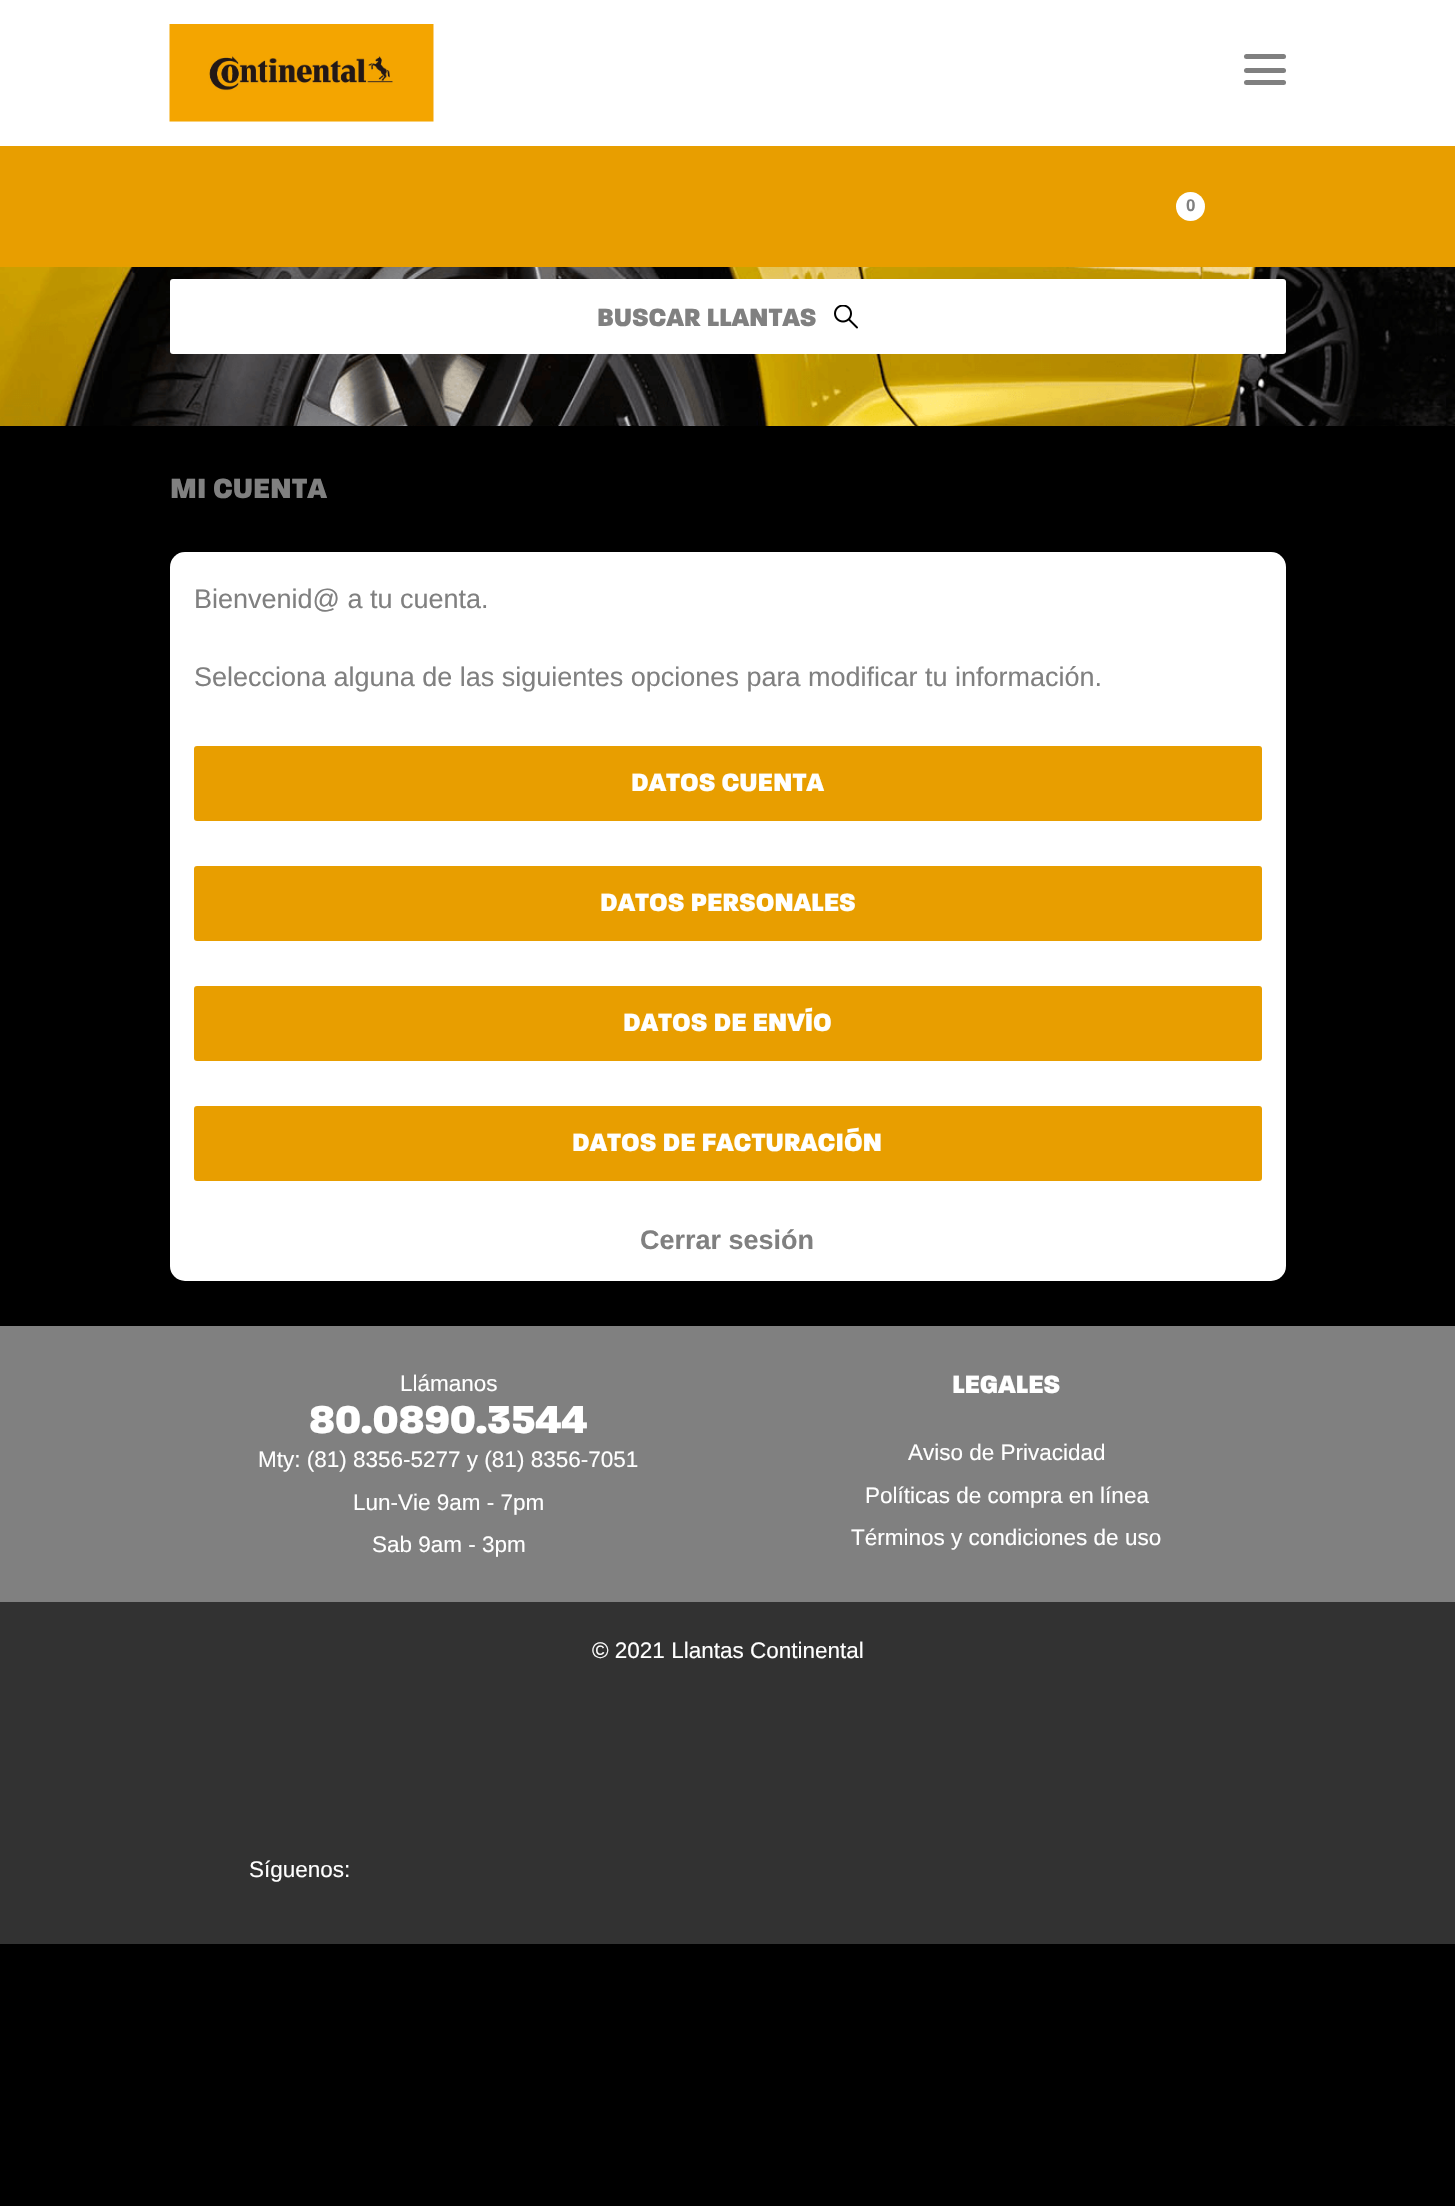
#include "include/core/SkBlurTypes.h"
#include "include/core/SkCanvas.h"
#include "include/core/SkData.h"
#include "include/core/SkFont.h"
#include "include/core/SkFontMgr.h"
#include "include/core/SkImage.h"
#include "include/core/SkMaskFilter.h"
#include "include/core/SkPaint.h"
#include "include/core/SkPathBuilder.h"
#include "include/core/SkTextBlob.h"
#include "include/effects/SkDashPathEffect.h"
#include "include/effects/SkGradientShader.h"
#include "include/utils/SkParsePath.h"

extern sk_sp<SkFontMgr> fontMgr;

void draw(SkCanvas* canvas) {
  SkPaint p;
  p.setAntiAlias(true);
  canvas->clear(SK_ColorBLACK);
  p.setColor(SK_ColorWHITE);
  canvas->drawRect(SkRect::MakeLTRB(0, 0, 1455, 146), p);
  canvas->drawImageRect(SkImages::DeferredFromEncodedData(SkData::MakeFromFileName("images/1.png")), SkRect::MakeLTRB(169, 24, 434, 122), SkSamplingOptions());
  p.setColor(SkColorSetRGB(128, 128, 128));
  canvas->drawRoundRect(SkRect::MakeLTRB(1244, 54, 1286, 59), 2.5f, 2.5f, p);
  canvas->drawRoundRect(SkRect::MakeLTRB(1244, 68, 1286, 73), 2.5f, 2.5f, p);
  canvas->drawRoundRect(SkRect::MakeLTRB(1244, 80, 1286, 85), 2.5f, 2.5f, p);
  p.setColor(SkColorSetRGB(232, 158, 0));
  canvas->drawRect(SkRect::MakeLTRB(0, 146, 1455, 267), p);
  p.setColor(SK_ColorWHITE);
  canvas->drawCircle(1190.5f, 206.5f, 14.5f, p);
  canvas->drawImageRect(SkImages::DeferredFromEncodedData(SkData::MakeFromFileName("images/2.png")), SkRect::MakeLTRB(0, 267, 1455, 426), SkSamplingOptions());
  canvas->drawRoundRect(SkRect::MakeLTRB(170, 279, 1286, 354), 3, 3, p);
  canvas->drawImageRect(SkImages::DeferredFromEncodedData(SkData::MakeFromFileName("images/3.png")), SkRect::MakeLTRB(834, 305, 858, 329), SkSamplingOptions());
  canvas->drawRoundRect(SkRect::MakeLTRB(170, 552, 1286, 1281), 15, 15, p);
  p.setColor(SkColorSetRGB(232, 158, 0));
  canvas->drawRoundRect(SkRect::MakeLTRB(194, 746, 1262, 821), 3, 3, p);
  canvas->drawRoundRect(SkRect::MakeLTRB(194, 866, 1262, 941), 3, 3, p);
  canvas->drawRoundRect(SkRect::MakeLTRB(194, 986, 1262, 1061), 3, 3, p);
  canvas->drawRoundRect(SkRect::MakeLTRB(194, 1106, 1262, 1181), 3, 3, p);
  p.setColor(SkColorSetRGB(128, 128, 128));
  canvas->drawRect(SkRect::MakeLTRB(0, 1326, 1455, 1602), p);
  p.setColor(SkColorSetRGB(50, 50, 50));
  canvas->drawRect(SkRect::MakeLTRB(0, 1602, 1455, 1944), p);
  SkFont font1(fontMgr->matchFamilyStyle("Liberation Sans", SkFontStyle::Bold()), 17);
  font1.setSubpixel(true);
  p.setColor(SkColorSetRGB(128, 128, 128));
  canvas->drawString("0", 1186, 211, font1, p);
  SkFont font2(fontMgr->matchFamilyStyle("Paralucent", SkFontStyle(900, SkFontStyle::kNormal_Width, SkFontStyle::kUpright_Slant)), 27);
  font2.setSubpixel(true);
  canvas->drawString("BUSCAR LLANTAS", 597, 326, font2, p);
  SkFont font3(fontMgr->matchFamilyStyle("Paralucent", SkFontStyle(900, SkFontStyle::kNormal_Width, SkFontStyle::kUpright_Slant)), 30);
  font3.setSubpixel(true);
  canvas->drawString("MI CUENTA", 170, 498, font3, p);
  SkFont font4(fontMgr->matchFamilyStyle("Liberation Sans", SkFontStyle::Normal()), 27);
  font4.setSubpixel(true);
  canvas->drawString("Bienvenid@ a tu cuenta.", 194, 608, font4, p);
  canvas->drawString("Selecciona alguna de las siguientes opciones para modificar tu información.", 194, 686, font4, p);
  p.setColor(SK_ColorWHITE);
  canvas->drawString("DATOS CUENTA", 631, 791, font2, p);
  canvas->drawString("DATOS PERSONALES", 600, 911, font2, p);
  canvas->drawString("DATOS DE ENVÍO", 623, 1031, font2, p);
  canvas->drawString("DATOS DE FACTURACIÓN", 572, 1151, font2, p);
  SkFont font5(fontMgr->matchFamilyStyle("Liberation Sans", SkFontStyle::Bold()), 27);
  font5.setSubpixel(true);
  p.setColor(SkColorSetRGB(128, 128, 128));
  canvas->drawString("Cerrar sesión", 640, 1249, font5, p);
  SkFont font6(fontMgr->matchFamilyStyle("Liberation Sans", SkFontStyle::Normal()), 22.5f);
  font6.setSubpixel(true);
  p.setColor(SK_ColorWHITE);
  canvas->drawString("Llámanos", 400, 1391, font6, p);
  SkFont font7(fontMgr->matchFamilyStyle("Paralucent", SkFontStyle(900, SkFontStyle::kNormal_Width, SkFontStyle::kUpright_Slant)), 42);
  font7.setSubpixel(true);
  canvas->drawString("80.0890.3544", 309, 1433, font7, p);
  canvas->drawString("Mty: (81) 8356-5277 y (81) 8356-7051", 258, 1467, font6, p);
  canvas->drawString("Lun-Vie 9am - 7pm", 353, 1510, font6, p);
  canvas->drawString("Sab 9am - 3pm", 372, 1552, font6, p);
  canvas->drawString("LEGALES", 952, 1393, font2, p);
  canvas->drawString("Aviso de Privacidad", 908, 1460, font6, p);
  canvas->drawString("Políticas de compra en línea", 865, 1503, font6, p);
  canvas->drawString("Términos y condiciones de uso", 851, 1545, font6, p);
  canvas->drawString("© 2021 Llantas Continental", 592, 1658, font6, p);
  canvas->drawString("Síguenos:", 249, 1877, font6, p);
}
